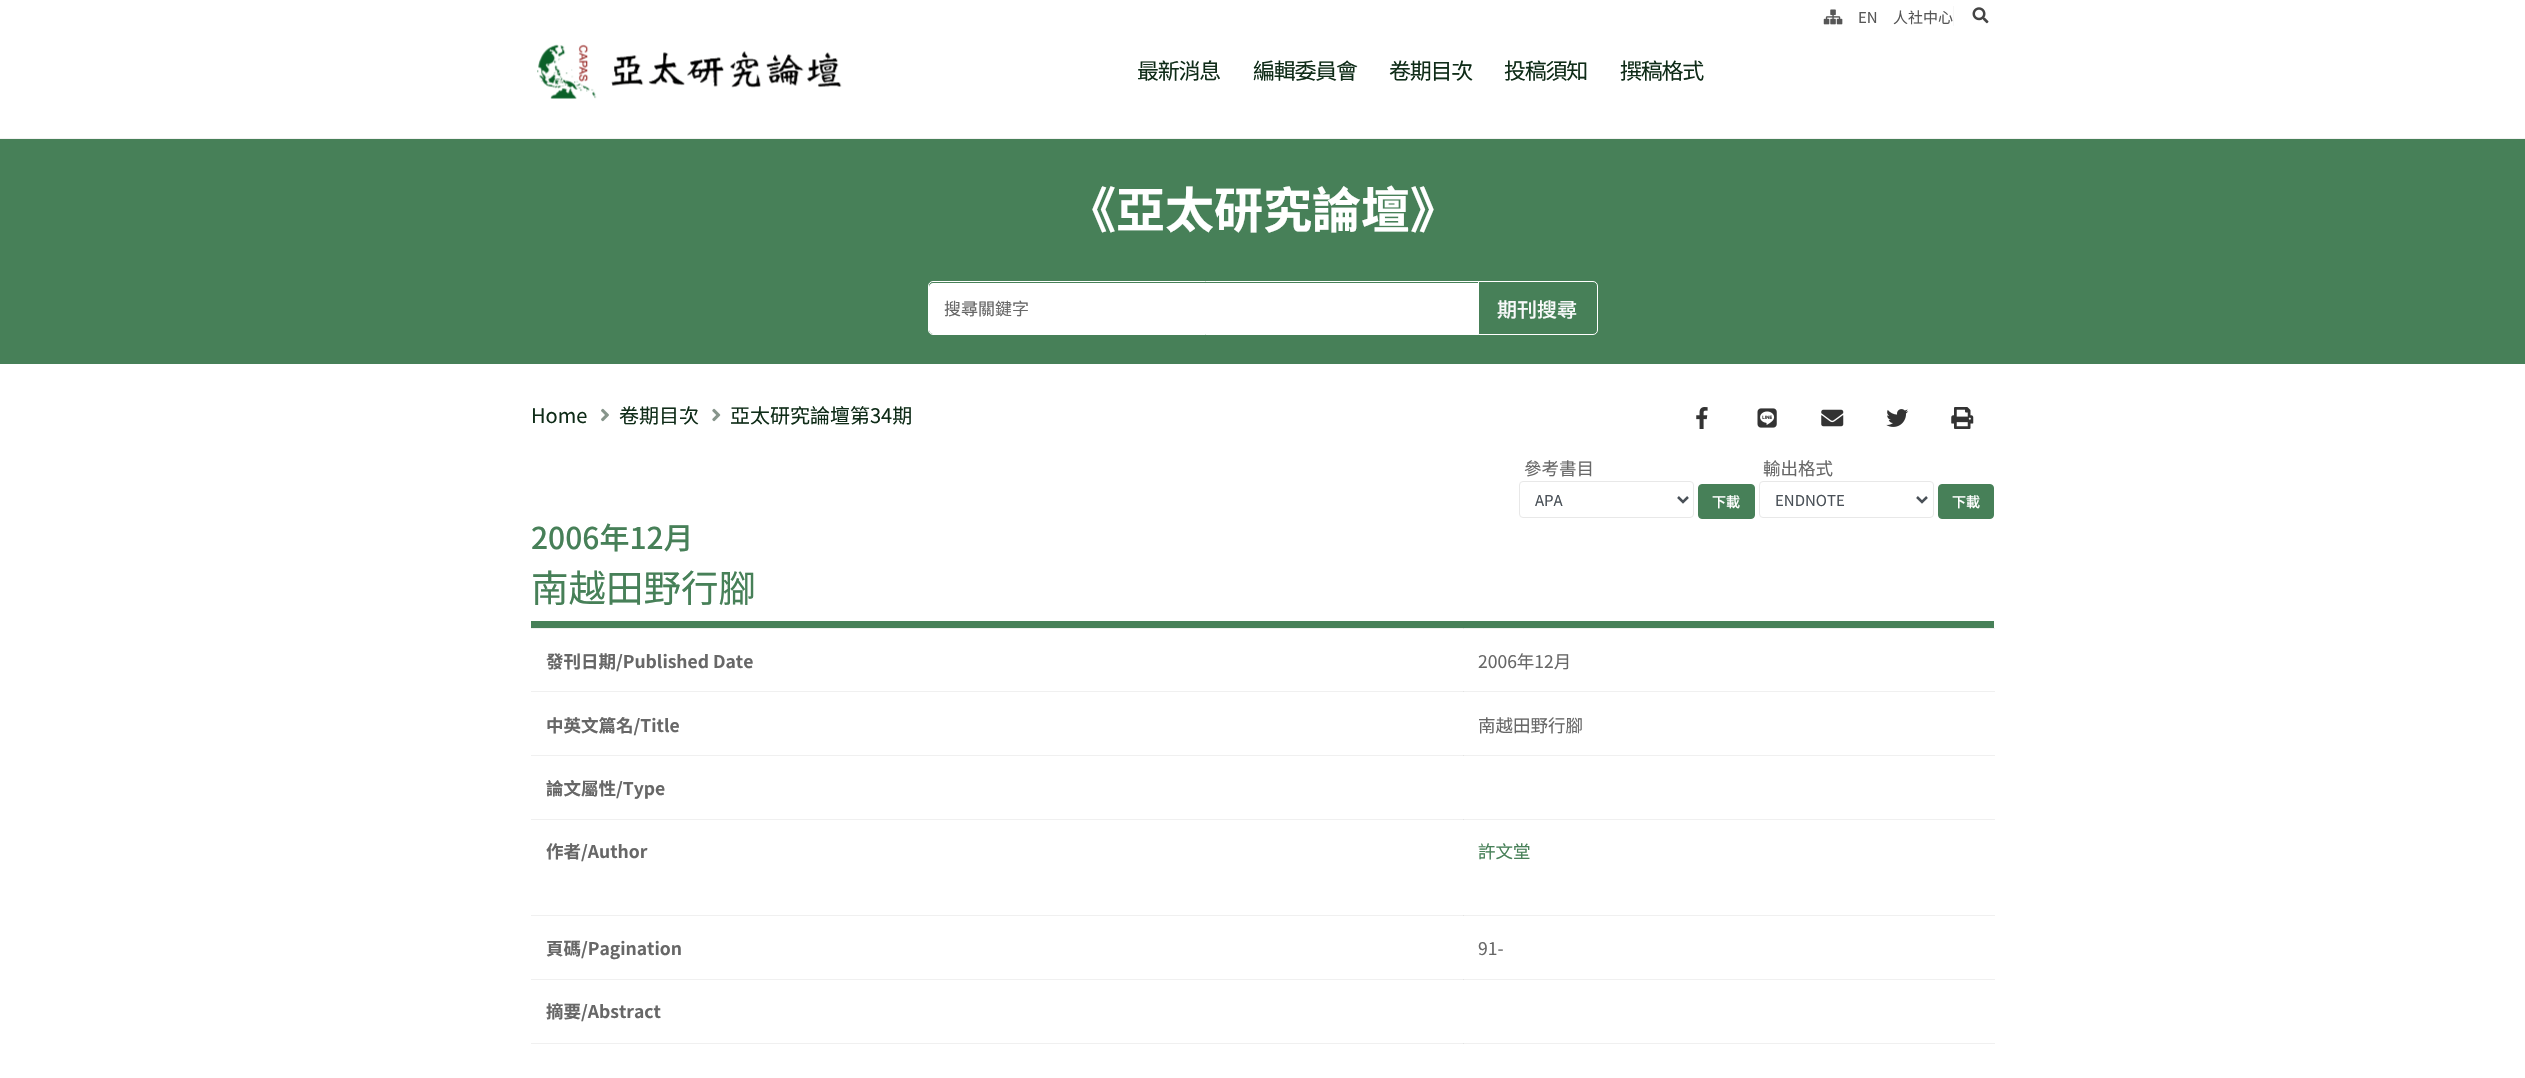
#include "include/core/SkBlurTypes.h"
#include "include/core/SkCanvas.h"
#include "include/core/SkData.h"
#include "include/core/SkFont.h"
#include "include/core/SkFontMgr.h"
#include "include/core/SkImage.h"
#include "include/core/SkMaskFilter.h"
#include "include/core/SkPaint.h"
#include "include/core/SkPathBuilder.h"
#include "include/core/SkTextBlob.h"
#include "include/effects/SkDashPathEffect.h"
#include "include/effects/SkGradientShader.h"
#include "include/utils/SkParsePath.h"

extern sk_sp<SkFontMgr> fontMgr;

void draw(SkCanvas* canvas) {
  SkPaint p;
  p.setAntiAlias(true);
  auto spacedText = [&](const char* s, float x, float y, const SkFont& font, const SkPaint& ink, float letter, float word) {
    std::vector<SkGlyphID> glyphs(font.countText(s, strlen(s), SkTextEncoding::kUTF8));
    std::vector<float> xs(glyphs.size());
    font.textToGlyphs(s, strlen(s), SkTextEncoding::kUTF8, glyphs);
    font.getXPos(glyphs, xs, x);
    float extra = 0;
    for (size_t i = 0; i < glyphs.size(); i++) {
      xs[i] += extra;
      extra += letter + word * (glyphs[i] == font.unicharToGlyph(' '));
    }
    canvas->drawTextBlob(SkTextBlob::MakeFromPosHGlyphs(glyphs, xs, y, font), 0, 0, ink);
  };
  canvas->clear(SK_ColorWHITE);
  p.setColor(SkColorSetRGB(240, 240, 240));
  canvas->drawRect(SkRect::MakeLTRB(531, 628, 1995, 629), p);
  canvas->drawRect(SkRect::MakeLTRB(531, 691, 1995, 692), p);
  canvas->drawRect(SkRect::MakeLTRB(531, 755, 1995, 756), p);
  canvas->drawRect(SkRect::MakeLTRB(531, 819, 1995, 820), p);
  canvas->drawRect(SkRect::MakeLTRB(531, 915, 1995, 916), p);
  canvas->drawRect(SkRect::MakeLTRB(531, 979, 1995, 980), p);
  canvas->drawRect(SkRect::MakeLTRB(531, 1043, 1995, 1044), p);
  p.setColor(SkColorSetRGB(242, 242, 242));
  canvas->drawRect(SkRect::MakeLTRB(0, 138, 2525, 139), p);
  canvas->drawImageRect(SkImages::DeferredFromEncodedData(SkData::MakeFromFileName("images/1.png")), SkRect::MakeLTRB(537, 44, 842, 99), SkSamplingOptions());
  canvas->drawImageRect(SkImages::DeferredFromEncodedData(SkData::MakeFromFileName("images/2.png")), SkRect::MakeLTRB(1823, 9, 1843, 25), SkSamplingOptions());
  p.setColor(SkColorSetRGB(247, 247, 247));
  canvas->drawRect(SkRect::MakeLTRB(1953, 6, 1954, 26), p);
  canvas->drawImageRect(SkImages::DeferredFromEncodedData(SkData::MakeFromFileName("images/3.png")), SkRect::MakeLTRB(1972, 7, 1989, 24), SkSamplingOptions());
  p.setColor(SkColorSetRGB(71, 128, 88));
  canvas->drawRect(SkRect::MakeLTRB(0, 139, 2525, 364), p);
  p.setColor(SK_ColorWHITE);
  canvas->drawPath(SkPathBuilder().moveTo(933, 283).lineTo(1478, 283).lineTo(1478, 334).lineTo(933, 334).cubicTo(931, 334, 929, 332, 929, 330).lineTo(929, 287).cubicTo(929, 285, 931, 283, 933, 283).close().detach(), p);
  p.setStyle(SkPaint::kStroke_Style);
  p.setStrokeWidth(1);
  canvas->drawPath(SkPathBuilder().moveTo(933, 281.5f).lineTo(1478.5f, 281.5f).lineTo(1478.5f, 334.5f).lineTo(933, 334.5f).cubicTo(930.5f, 334.5f, 928.5f, 332.5f, 928.5f, 330).lineTo(928.5f, 286).cubicTo(928.5f, 283.5f, 930.5f, 281.5f, 933, 281.5f).close().detach(), p);
  canvas->drawPath(SkPathBuilder().moveTo(1478.5f, 281.5f).lineTo(1593, 281.5f).cubicTo(1595.5f, 281.5f, 1597.5f, 283.5f, 1597.5f, 286).lineTo(1597.5f, 330).cubicTo(1597.5f, 332.5f, 1595.5f, 334.5f, 1593, 334.5f).lineTo(1478.5f, 334.5f).close().detach(), p);
  canvas->drawImageRect(SkImages::DeferredFromEncodedData(SkData::MakeFromFileName("images/4.png")), SkRect::MakeLTRB(601, 408, 609, 422), SkSamplingOptions());
  canvas->drawImageRect(SkImages::DeferredFromEncodedData(SkData::MakeFromFileName("images/5.png")), SkRect::MakeLTRB(712, 408, 721, 422), SkSamplingOptions());
  canvas->drawImageRect(SkImages::DeferredFromEncodedData(SkData::MakeFromFileName("images/6.png")), SkRect::MakeLTRB(1696, 407, 1708, 429), SkSamplingOptions());
  canvas->drawImageRect(SkImages::DeferredFromEncodedData(SkData::MakeFromFileName("images/7.png")), SkRect::MakeLTRB(1757, 408, 1777, 428), SkSamplingOptions());
  canvas->drawImageRect(SkImages::DeferredFromEncodedData(SkData::MakeFromFileName("images/8.png")), SkRect::MakeLTRB(1821, 409, 1844, 427), SkSamplingOptions());
  canvas->drawImageRect(SkImages::DeferredFromEncodedData(SkData::MakeFromFileName("images/9.png")), SkRect::MakeLTRB(1886, 409, 1909, 427), SkSamplingOptions());
  canvas->drawImageRect(SkImages::DeferredFromEncodedData(SkData::MakeFromFileName("images/10.png")), SkRect::MakeLTRB(1951, 407, 1974, 429), SkSamplingOptions());
  p.setColor(SkColorSetRGB(232, 232, 232));
  canvas->drawRoundRect(SkRect::MakeLTRB(1519.5f, 481.5f, 1693.5f, 517.5f), 3.5f, 3.5f, p);
  p.setStrokeWidth(2.5f);
  p.setColor(SkColorSetRGB(73, 80, 87));
  canvas->drawPath(SkPathBuilder().moveTo(1678, 497).lineTo(1683, 502).lineTo(1688, 497).detach(), p);
  p.setStyle(SkPaint::kFill_Style);
  p.setColor(SkColorSetRGB(71, 128, 88));
  canvas->drawRoundRect(SkRect::MakeLTRB(1698.5f, 484.5f, 1754.5f, 518.5f), 3.5f, 3.5f, p);
  p.setStyle(SkPaint::kStroke_Style);
  p.setStrokeWidth(1);
  canvas->drawRoundRect(SkRect::MakeLTRB(1698.5f, 484.5f, 1754.5f, 518.5f), 3.5f, 3.5f, p);
  p.setColor(SkColorSetRGB(232, 232, 232));
  canvas->drawRoundRect(SkRect::MakeLTRB(1759.5f, 481.5f, 1933.5f, 517.5f), 3.5f, 3.5f, p);
  p.setStrokeWidth(2.5f);
  p.setColor(SkColorSetRGB(73, 80, 87));
  canvas->drawPath(SkPathBuilder().moveTo(1917, 497).lineTo(1922, 502).lineTo(1927, 497).detach(), p);
  p.setStyle(SkPaint::kFill_Style);
  p.setColor(SkColorSetRGB(71, 128, 88));
  canvas->drawRoundRect(SkRect::MakeLTRB(1938.5f, 484.5f, 1993.5f, 518.5f), 3.5f, 3.5f, p);
  p.setStyle(SkPaint::kStroke_Style);
  p.setStrokeWidth(1);
  canvas->drawRoundRect(SkRect::MakeLTRB(1938.5f, 484.5f, 1993.5f, 518.5f), 3.5f, 3.5f, p);
  p.setStyle(SkPaint::kFill_Style);
  canvas->drawRect(SkRect::MakeLTRB(531, 621, 1994, 628), p);
  p.setColor(SkColorSetRGB(226, 226, 226));
  canvas->drawRect(SkRect::MakeLTRB(1463, 628, 1464, 629), p);
  canvas->drawRect(SkRect::MakeLTRB(1463, 691, 1464, 692), p);
  canvas->drawRect(SkRect::MakeLTRB(1463, 755, 1464, 756), p);
  canvas->drawRect(SkRect::MakeLTRB(1463, 819, 1464, 820), p);
  canvas->drawRect(SkRect::MakeLTRB(1463, 915, 1464, 916), p);
  canvas->drawRect(SkRect::MakeLTRB(1463, 979, 1464, 980), p);
  canvas->drawRect(SkRect::MakeLTRB(1463, 1043, 1464, 1044), p);
  SkFont font1(fontMgr->matchFamilyStyle("Noto Sans TC", SkFontStyle::Normal()), 15);
  font1.setSubpixel(true);
  p.setColor(SkColorSetRGB(86, 86, 86));
  canvas->drawString("EN", 1858, 23, font1, p);
  canvas->drawString("人社中心", 1893, 23, font1, p);
  SkFont font2(fontMgr->matchFamilyStyle("Noto Sans TC", SkFontStyle::Normal()), 22);
  font2.setSubpixel(true);
  p.setColor(SkColorSetRGB(15, 44, 24));
  spacedText("最新消息", 1137, 79, font2, p, -1.25f, 0);
  spacedText("編輯委員會", 1253, 79, font2, p, -1.25f, 0);
  spacedText("卷期目次", 1389, 79, font2, p, -1.25f, 0);
  spacedText("投稿須知", 1504, 79, font2, p, -1.25f, 0);
  spacedText("撰稿格式", 1620, 79, font2, p, -1.25f, 0);
  SkFont font3(fontMgr->matchFamilyStyle("Noto Sans TC", SkFontStyle::Bold()), 49);
  font3.setSubpixel(true);
  p.setColor(SK_ColorWHITE);
  canvas->drawString("《亞太研究論壇》", 1067, 228, font3, p);
  SkFont font4(fontMgr->matchFamilyStyle("Noto Sans TC", SkFontStyle::Normal()), 17);
  font4.setSubpixel(true);
  p.setColor(SkColorSetRGB(103, 103, 103));
  canvas->drawString("搜尋關鍵字", 944, 315, font4, p);
  SkFont font5(fontMgr->matchFamilyStyle("Noto Sans TC", SkFontStyle(500, SkFontStyle::kNormal_Width, SkFontStyle::kUpright_Slant)), 20);
  font5.setSubpixel(true);
  p.setColor(SkColorSetRGB(248, 249, 250));
  canvas->drawString("期刊搜尋", 1497, 317, font5, p);
  SkFont font6(fontMgr->matchFamilyStyle("Noto Sans TC", SkFontStyle::Normal()), 20);
  font6.setSubpixel(true);
  p.setColor(SkColorSetRGB(15, 44, 24));
  canvas->drawString("Home", 531, 423, font6, p);
  canvas->drawString("卷期目次", 619, 423, font6, p);
  canvas->drawString("亞太研究論壇第34期", 730, 423, font6, p);
  SkFont font7(fontMgr->matchFamilyStyle("Noto Sans TC", SkFontStyle::Normal()), 17.5f);
  font7.setSubpixel(true);
  p.setColor(SkColorSetRGB(103, 103, 103));
  canvas->drawString("參考書目", 1524, 475, font7, p);
  p.setColor(SkColorSetRGB(73, 80, 87));
  canvas->drawString("APA", 1535, 506, font1, p);
  SkFont font8(fontMgr->matchFamilyStyle("Noto Sans TC", SkFontStyle(500, SkFontStyle::kNormal_Width, SkFontStyle::kUpright_Slant)), 14);
  font8.setSubpixel(true);
  p.setColor(SK_ColorWHITE);
  canvas->drawString("下載", 1712, 507, font8, p);
  p.setColor(SkColorSetRGB(103, 103, 103));
  canvas->drawString("輸出格式", 1763, 475, font7, p);
  p.setColor(SkColorSetRGB(73, 80, 87));
  canvas->drawString("ENDNOTE", 1775, 506, font1, p);
  p.setColor(SK_ColorWHITE);
  canvas->drawString("下載", 1952, 507, font8, p);
  SkFont font9(fontMgr->matchFamilyStyle("Noto Sans TC", SkFontStyle(500, SkFontStyle::kNormal_Width, SkFontStyle::kUpright_Slant)), 30);
  font9.setSubpixel(true);
  p.setColor(SkColorSetRGB(71, 128, 88));
  canvas->drawString("2006年12月", 531, 549, font9, p);
  SkFont font10(fontMgr->matchFamilyStyle("Noto Sans TC", SkFontStyle::Normal()), 37.5f);
  font10.setSubpixel(true);
  canvas->drawString("南越田野行腳", 531, 602, font10, p);
  SkFont font11(fontMgr->matchFamilyStyle("Noto Sans TC", SkFontStyle::Bold()), 17.5f);
  font11.setSubpixel(true);
  p.setColor(SkColorSetRGB(103, 103, 103));
  canvas->drawString("發刊日期/Published Date", 546, 668, font11, p);
  canvas->drawString("2006年12月", 1478, 668, font7, p);
  canvas->drawString("中英文篇名/Title", 546, 732, font11, p);
  canvas->drawString("南越田野行腳", 1478, 732, font7, p);
  canvas->drawString("論文屬性/Type", 546, 795, font11, p);
  canvas->drawString("作者/Author", 546, 858, font11, p);
  p.setColor(SkColorSetRGB(71, 128, 88));
  canvas->drawString("許文堂", 1478, 858, font7, p);
  p.setColor(SkColorSetRGB(103, 103, 103));
  canvas->drawString("頁碼/Pagination", 546, 955, font11, p);
  canvas->drawString("91-", 1478, 955, font7, p);
  canvas->drawString("摘要/Abstract", 546, 1018, font11, p);
}
